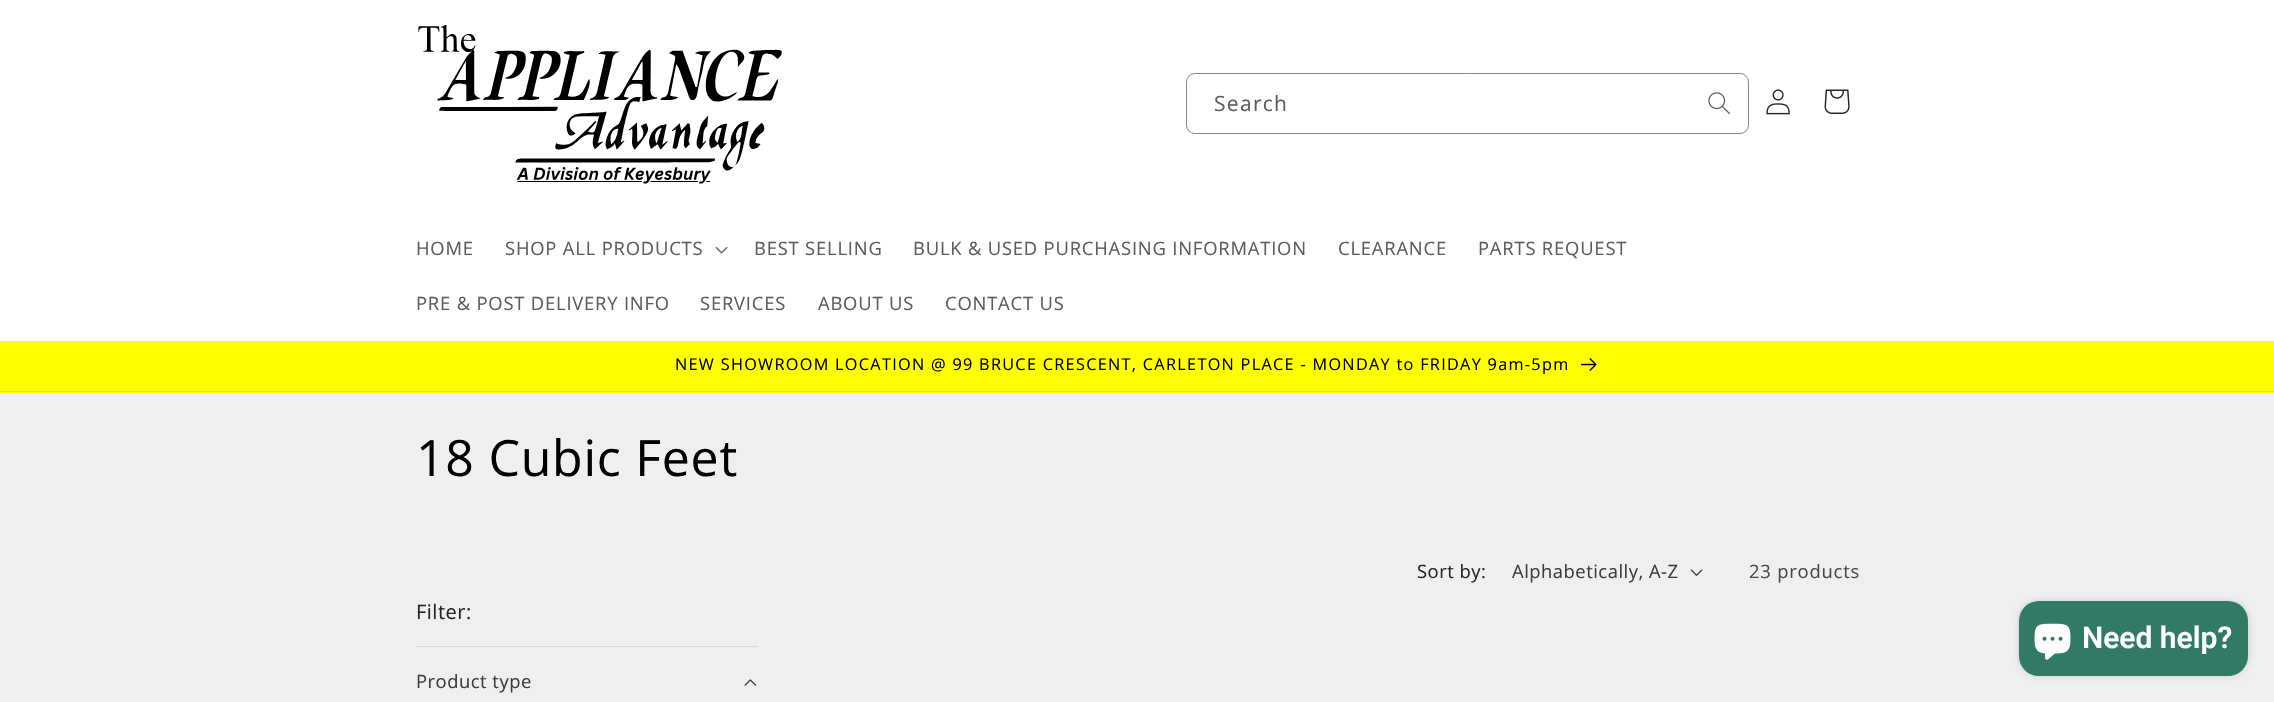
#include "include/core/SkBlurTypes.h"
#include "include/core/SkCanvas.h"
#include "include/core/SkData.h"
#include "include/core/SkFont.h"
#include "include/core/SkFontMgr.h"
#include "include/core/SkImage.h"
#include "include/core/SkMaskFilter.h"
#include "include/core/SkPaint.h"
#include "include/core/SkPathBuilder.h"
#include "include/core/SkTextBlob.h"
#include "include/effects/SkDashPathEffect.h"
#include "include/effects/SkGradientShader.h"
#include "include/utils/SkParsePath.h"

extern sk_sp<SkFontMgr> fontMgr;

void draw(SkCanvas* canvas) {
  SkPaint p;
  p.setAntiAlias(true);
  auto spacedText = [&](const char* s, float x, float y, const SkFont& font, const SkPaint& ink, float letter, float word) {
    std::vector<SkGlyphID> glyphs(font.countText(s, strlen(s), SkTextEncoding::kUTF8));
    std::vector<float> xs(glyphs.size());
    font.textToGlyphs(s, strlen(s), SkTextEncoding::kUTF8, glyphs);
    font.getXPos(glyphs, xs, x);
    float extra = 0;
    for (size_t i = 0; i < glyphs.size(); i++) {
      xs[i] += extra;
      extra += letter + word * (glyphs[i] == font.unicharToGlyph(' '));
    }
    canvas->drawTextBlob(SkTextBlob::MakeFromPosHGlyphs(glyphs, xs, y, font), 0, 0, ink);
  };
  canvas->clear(SkColorSetRGB(239, 239, 239));
  p.setColor(SK_ColorWHITE);
  canvas->drawRect(SkRect::MakeLTRB(0, 0, 2274, 341), p);
  canvas->drawImageRect(SkImages::DeferredFromEncodedData(SkData::MakeFromFileName("images/1.png")), SkRect::MakeLTRB(418, 25, 782, 184), SkSamplingOptions());
  canvas->drawImageRect(SkImages::DeferredFromEncodedData(SkData::MakeFromFileName("images/2.png")), SkRect::MakeLTRB(1708, 92, 1730, 115), SkSamplingOptions());
  p.setStyle(SkPaint::kStroke_Style);
  p.setStrokeWidth(1);
  p.setColor(SkColorSetRGB(135, 135, 135));
  canvas->drawRoundRect(SkRect::MakeLTRB(1186.5f, 73.5f, 1748.5f, 133.5f), 8.5f, 8.5f, p);
  canvas->drawImageRect(SkImages::DeferredFromEncodedData(SkData::MakeFromFileName("images/3.png")), SkRect::MakeLTRB(1766, 89, 1790, 115), SkSamplingOptions());
  canvas->drawImageRect(SkImages::DeferredFromEncodedData(SkData::MakeFromFileName("images/4.png")), SkRect::MakeLTRB(1824, 89, 1850, 114), SkSamplingOptions());
  canvas->drawImageRect(SkImages::DeferredFromEncodedData(SkData::MakeFromFileName("images/5.png")), SkRect::MakeLTRB(715, 247, 728, 254), SkSamplingOptions());
  p.setStyle(SkPaint::kFill_Style);
  p.setColor(SkColorSetRGB(255, 254, 0));
  canvas->drawRect(SkRect::MakeLTRB(0, 341, 2274, 393), p);
  p.setColor(SkColorSetRGB(235, 234, 0));
  canvas->drawRect(SkRect::MakeLTRB(0, 391, 2274, 392), p);
  canvas->drawImageRect(SkImages::DeferredFromEncodedData(SkData::MakeFromFileName("images/6.png")), SkRect::MakeLTRB(1581, 358, 1597, 371), SkSamplingOptions());
  canvas->drawImageRect(SkImages::DeferredFromEncodedData(SkData::MakeFromFileName("images/7.png")), SkRect::MakeLTRB(1690, 569, 1703, 576), SkSamplingOptions());
  p.setColor(SkColorSetRGB(215, 215, 215));
  canvas->drawRect(SkRect::MakeLTRB(416, 646, 758, 647), p);
  canvas->drawImageRect(SkImages::DeferredFromEncodedData(SkData::MakeFromFileName("images/8.png")), SkRect::MakeLTRB(744, 679, 757, 686), SkSamplingOptions());
  p.setColor(SkColorSetARGB(38, 0, 0, 0));
  p.setMaskFilter(SkMaskFilter::MakeBlur(kNormal_SkBlurStyle, 3));
  canvas->drawRoundRect(SkRect::MakeLTRB(2019, 601, 2248, 676), 20, 20, p);
  p.setMaskFilter(nullptr);
  p.setColor(SkColorSetRGB(49, 123, 102));
  canvas->drawRoundRect(SkRect::MakeLTRB(2019, 601, 2248, 676), 20, 20, p);
  canvas->drawImageRect(SkImages::DeferredFromEncodedData(SkData::MakeFromFileName("images/9.png")), SkRect::MakeLTRB(2034, 623, 2071, 660), SkSamplingOptions());
  SkFont font1(fontMgr->matchFamilyStyle("Open Sans", SkFontStyle::Normal()), 21);
  font1.setSubpixel(true);
  p.setColor(SkColorSetRGB(92, 92, 92));
  spacedText("Search", 1214, 111, font1, p, 1.3f, 0);
  SkFont font2(fontMgr->matchFamilyStyle("Open Sans", SkFontStyle::Normal()), 18.4f);
  font2.setSubpixel(true);
  spacedText("HOME", 416, 255, font2, p, 0.8f, 0);
  spacedText("SHOP ALL PRODUCTS", 505, 255, font2, p, 0.8f, 0);
  spacedText("BEST SELLING", 754, 255, font2, p, 0.8f, 0);
  spacedText("BULK & USED PURCHASING INFORMATION", 913, 255, font2, p, 0.8f, 0);
  spacedText("CLEARANCE", 1338, 255, font2, p, 0.8f, 0);
  spacedText("PARTS REQUEST", 1478, 255, font2, p, 0.8f, 0);
  spacedText("PRE & POST DELIVERY INFO", 416, 310, font2, p, 0.8f, 0);
  spacedText("SERVICES", 700, 310, font2, p, 0.8f, 0);
  spacedText("ABOUT US", 818, 310, font2, p, 0.8f, 0);
  spacedText("CONTACT US", 945, 310, font2, p, 0.8f, 0);
  SkFont font3(fontMgr->matchFamilyStyle("Open Sans", SkFontStyle::Normal()), 16.25f);
  font3.setSubpixel(true);
  p.setColor(SK_ColorBLACK);
  spacedText("NEW SHOWROOM LOCATION @ 99 BRUCE CRESCENT, CARLETON PLACE - MONDAY to FRIDAY 9am-5pm", 675, 370, font3, p, 1.3f, 0);
  SkFont font4(fontMgr->matchFamilyStyle("Open Sans", SkFontStyle::Normal()), 50);
  font4.setSubpixel(true);
  spacedText("18 Cubic Feet", 416, 476, font4, p, 0.75f, 0);
  p.setColor(SkColorSetRGB(36, 36, 36));
  spacedText("Sort by:", 1417, 578, font2, p, 0.5f, 0);
  p.setColor(SkColorSetRGB(60, 60, 60));
  spacedText("Alphabetically, A-Z", 1512, 578, font2, p, 0.5f, 0);
  p.setColor(SkColorSetRGB(72, 72, 72));
  spacedText("23 products", 1749, 578, font2, p, 0.8f, 0);
  SkFont font5(fontMgr->matchFamilyStyle("Open Sans", SkFontStyle::Normal()), 20);
  font5.setSubpixel(true);
  p.setColor(SkColorSetRGB(36, 36, 36));
  spacedText("Filter:", 416, 619, font5, p, 0.5f, 0);
  p.setColor(SkColorSetRGB(60, 60, 60));
  spacedText("Product type", 416, 688, font2, p, 0.5f, 0);
  SkFont font6(fontMgr->matchFamilyStyle("Roboto", SkFontStyle(600, SkFontStyle::kNormal_Width, SkFontStyle::kUpright_Slant)), 30);
  font6.setSubpixel(true);
  p.setColor(SK_ColorWHITE);
  canvas->drawString("Need help?", 2082, 648, font6, p);
}
